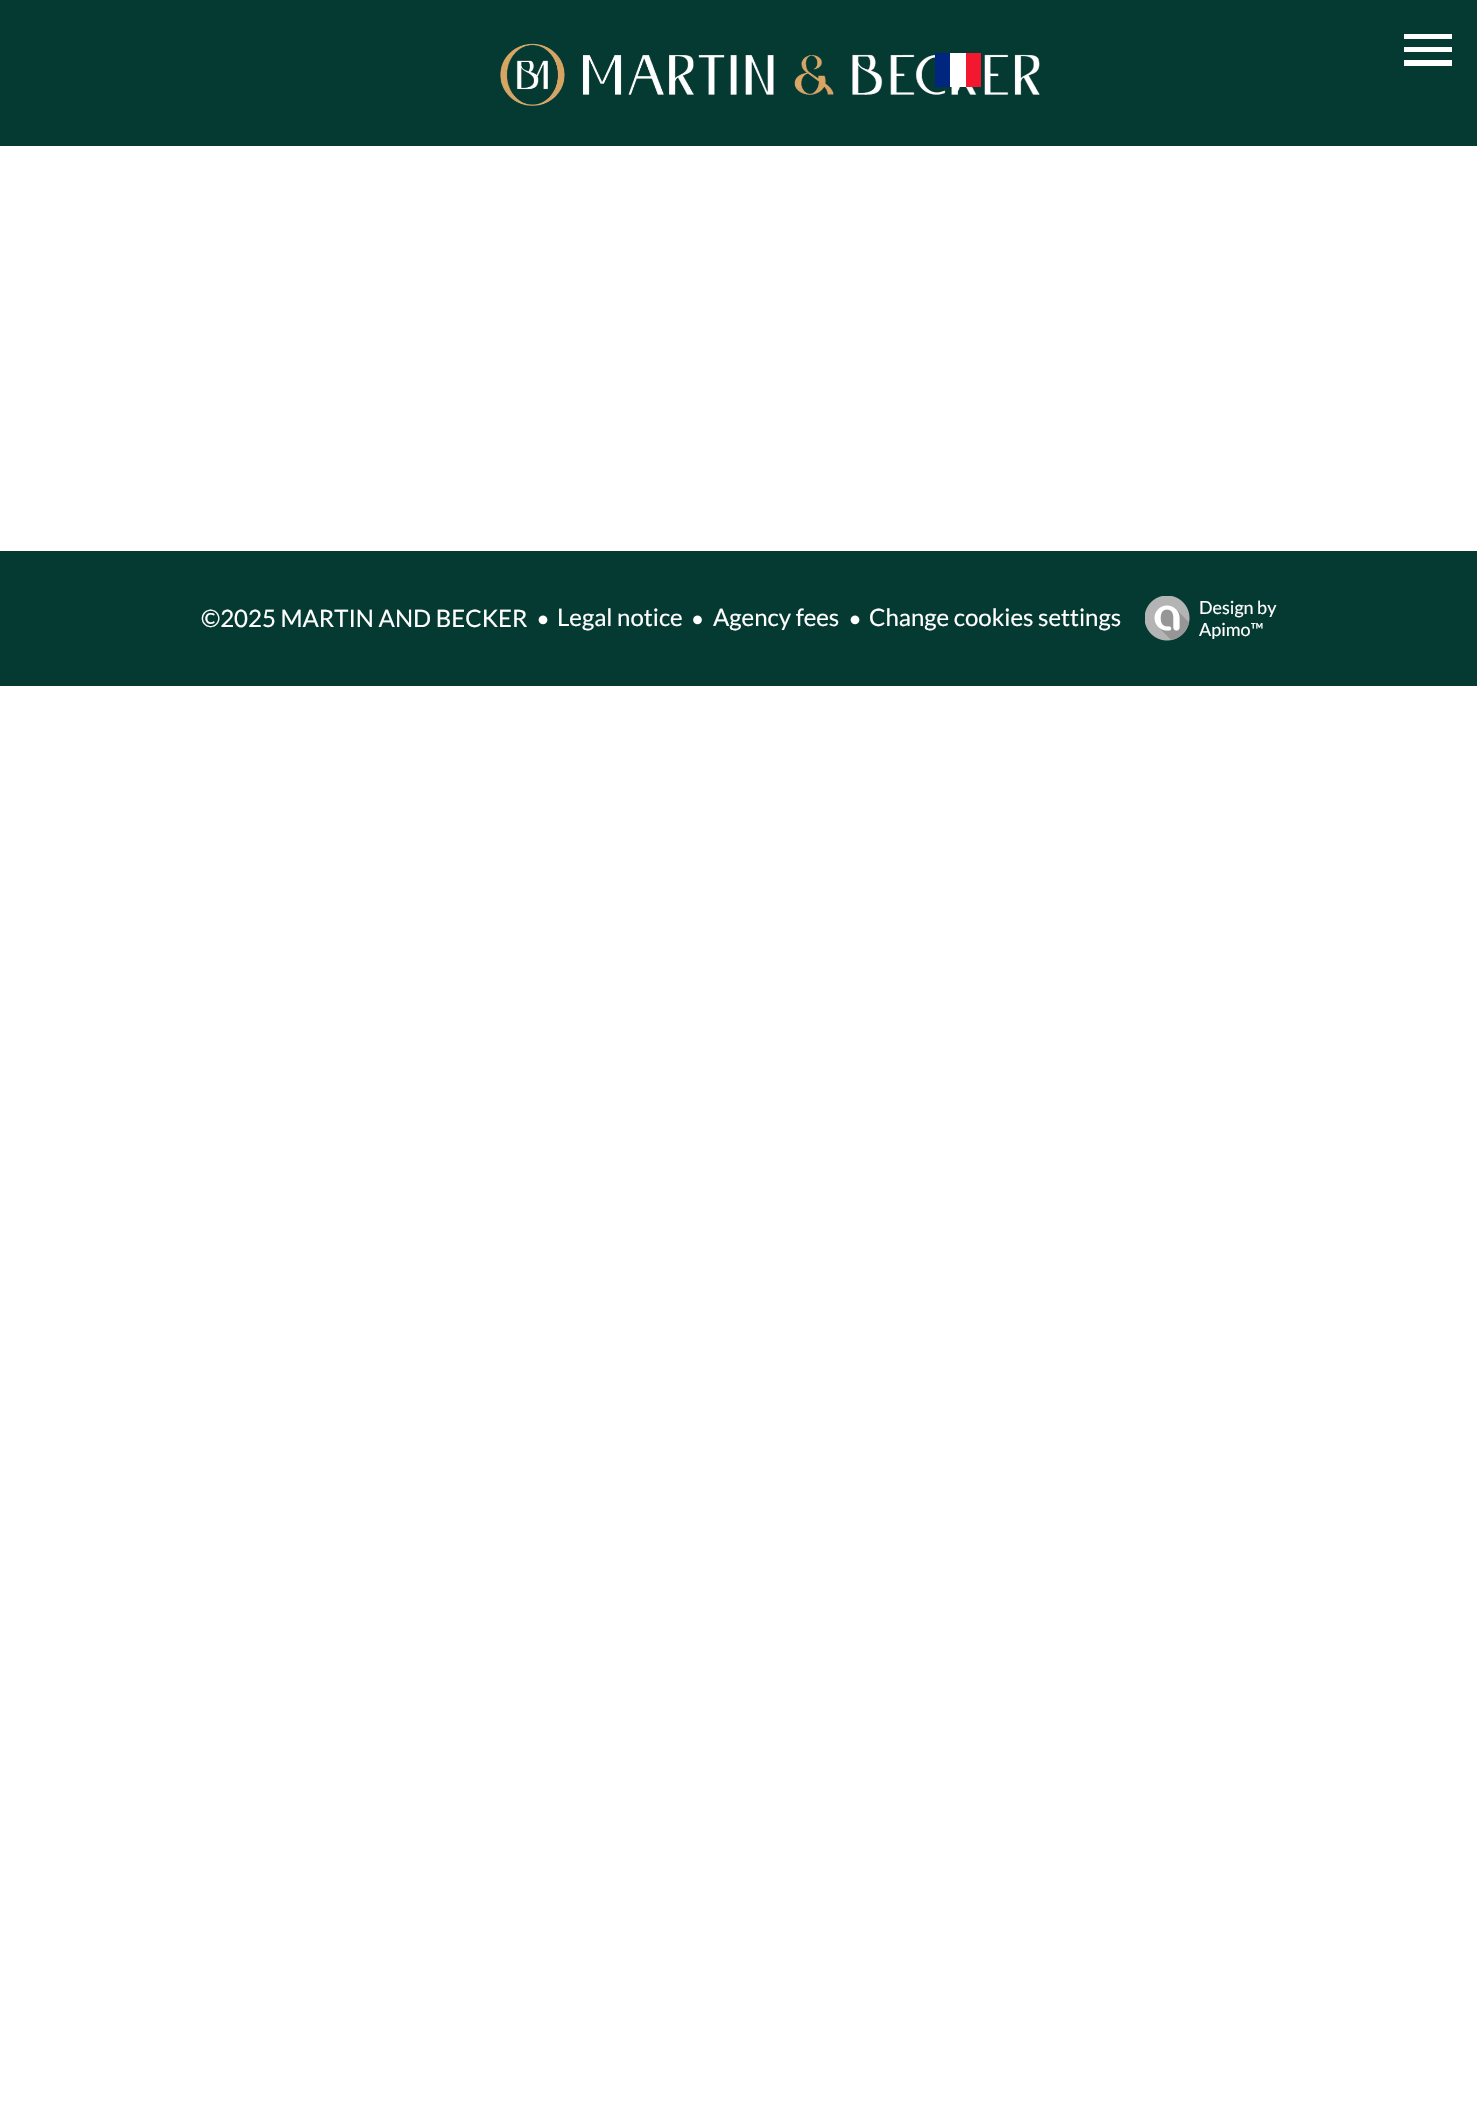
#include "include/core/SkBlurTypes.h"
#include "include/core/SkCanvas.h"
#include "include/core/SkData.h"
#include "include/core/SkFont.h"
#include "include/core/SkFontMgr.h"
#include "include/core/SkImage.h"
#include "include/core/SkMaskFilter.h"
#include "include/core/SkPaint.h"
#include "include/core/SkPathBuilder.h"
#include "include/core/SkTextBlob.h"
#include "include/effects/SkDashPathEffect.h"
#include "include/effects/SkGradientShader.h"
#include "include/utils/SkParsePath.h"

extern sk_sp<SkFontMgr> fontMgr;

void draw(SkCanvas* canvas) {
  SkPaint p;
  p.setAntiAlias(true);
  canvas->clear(SK_ColorWHITE);
  p.setColor(SkColorSetRGB(4, 58, 50));
  canvas->drawRect(SkRect::MakeLTRB(0, 0, 1477, 146), p);
  canvas->drawImageRect(SkImages::DeferredFromEncodedData(SkData::MakeFromFileName("images/1.png")), SkRect::MakeLTRB(500, 43, 1040, 106), SkSamplingOptions());
  p.setColor(SK_ColorWHITE);
  canvas->drawRect(SkRect::MakeLTRB(950, 53, 966, 87), p);
  p.setColor(SkColorSetRGB(0, 38, 127));
  canvas->drawRect(SkRect::MakeLTRB(935, 53, 950, 87), p);
  p.setColor(SkColorSetRGB(243, 24, 48));
  canvas->drawRect(SkRect::MakeLTRB(966, 53, 981, 87), p);
  p.setColor(SK_ColorWHITE);
  canvas->drawPath(SkPathBuilder().moveTo(1404, 34).lineTo(1452, 34).lineTo(1452, 39).lineTo(1404, 39).close().moveTo(1404, 47).lineTo(1452, 47).lineTo(1452, 52).lineTo(1404, 52).close().moveTo(1404, 60).lineTo(1452, 60).lineTo(1452, 66).lineTo(1404, 66).close().detach(), p);
  p.setColor(SkColorSetRGB(4, 58, 50));
  canvas->drawRect(SkRect::MakeLTRB(0, 551, 1477, 686), p);
  canvas->drawImageRect(SkImages::DeferredFromEncodedData(SkData::MakeFromFileName("images/2.png")), SkRect::MakeLTRB(538, 615, 548, 625), SkSamplingOptions());
  canvas->drawImageRect(SkImages::DeferredFromEncodedData(SkData::MakeFromFileName("images/3.png")), SkRect::MakeLTRB(693, 615, 702, 625), SkSamplingOptions());
  canvas->drawImageRect(SkImages::DeferredFromEncodedData(SkData::MakeFromFileName("images/2.png")), SkRect::MakeLTRB(850, 615, 860, 625), SkSamplingOptions());
  canvas->drawImageRect(SkImages::DeferredFromEncodedData(SkData::MakeFromFileName("images/4.png")), SkRect::MakeLTRB(1145, 596, 1190, 641), SkSamplingOptions());
  SkFont font1(fontMgr->matchFamilyStyle("Lato", SkFontStyle::Normal()), 24);
  font1.setSubpixel(true);
  p.setColor(SK_ColorWHITE);
  canvas->drawString("©2025 MARTIN AND BECKER", 201, 627, font1, p);
  canvas->drawString("Legal notice", 557, 626, font1, p);
  canvas->drawString("Agency fees", 713, 626, font1, p);
  canvas->drawString("Change cookies settings", 869, 626, font1, p);
  SkFont font2(fontMgr->matchFamilyStyle("Lato", SkFontStyle::Normal()), 18);
  font2.setSubpixel(true);
  canvas->drawString("Design by", 1199, 614, font2, p);
  canvas->drawString("Apimo™", 1199, 636, font2, p);
}
